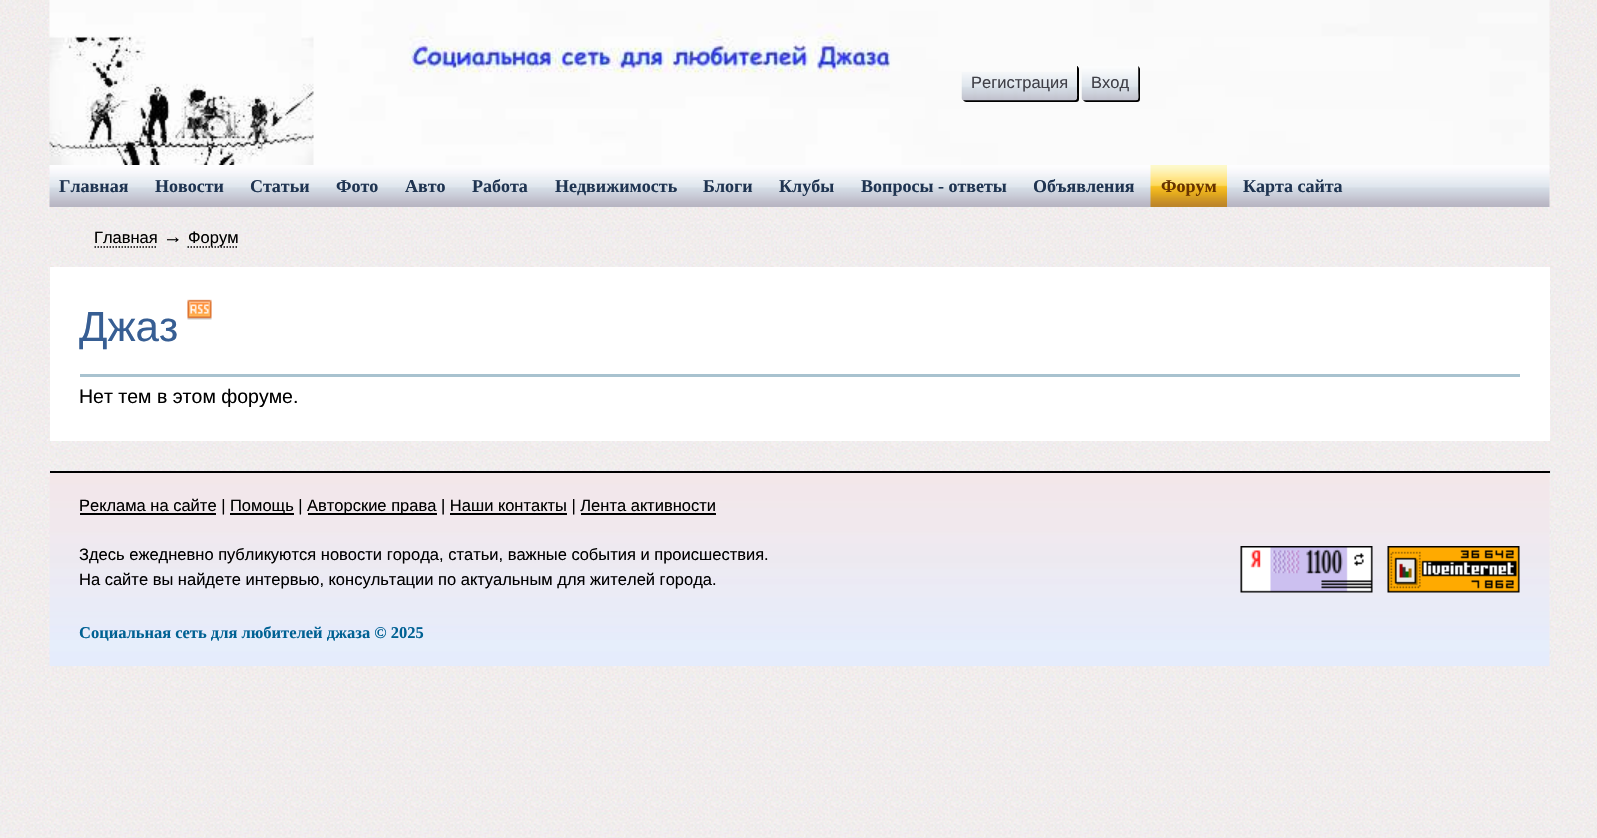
#include "include/core/SkBlurTypes.h"
#include "include/core/SkCanvas.h"
#include "include/core/SkData.h"
#include "include/core/SkFont.h"
#include "include/core/SkFontMgr.h"
#include "include/core/SkImage.h"
#include "include/core/SkMaskFilter.h"
#include "include/core/SkPaint.h"
#include "include/core/SkPathBuilder.h"
#include "include/core/SkTextBlob.h"
#include "include/effects/SkDashPathEffect.h"
#include "include/effects/SkGradientShader.h"
#include "include/utils/SkParsePath.h"

extern sk_sp<SkFontMgr> fontMgr;

void draw(SkCanvas* canvas) {
  SkPaint p;
  p.setAntiAlias(true);
  canvas->clear(SK_ColorWHITE);
  canvas->drawImageRect(SkImages::DeferredFromEncodedData(SkData::MakeFromFileName("images/1.png")), SkRect::MakeLTRB(0, 0, 1597, 838), SkSamplingOptions());
  canvas->drawImageRect(SkImages::DeferredFromEncodedData(SkData::MakeFromFileName("images/2.png")), SkRect::MakeLTRB(49, 0, 1550, 165), SkSamplingOptions());
  p.setColor(SK_ColorBLACK);
  canvas->drawPath(SkPathBuilder().moveTo(963, 100).cubicTo(964, 101, 965, 102, 966, 102).lineTo(1076, 102).cubicTo(1078, 102, 1079, 101, 1079, 99).lineTo(1079, 69).cubicTo(1079, 68, 1078, 66, 1077, 66).lineTo(1077, 92).cubicTo(1077, 95, 1078, 100, 1074, 100).close().detach(), p);
  canvas->drawImageRect(SkImages::DeferredFromEncodedData(SkData::MakeFromFileName("images/3.png")), SkRect::MakeLTRB(961, 72, 1077, 101), SkSamplingOptions());
  canvas->drawPath(SkPathBuilder().moveTo(1083, 100).cubicTo(1084, 101, 1085, 102, 1086, 102).lineTo(1137, 102).cubicTo(1139, 102, 1140, 101, 1140, 99).lineTo(1140, 69).cubicTo(1140, 68, 1139, 67, 1138, 66).lineTo(1138, 88).cubicTo(1138, 102, 1141, 100, 1127, 100).close().detach(), p);
  canvas->drawImageRect(SkImages::DeferredFromEncodedData(SkData::MakeFromFileName("images/4.png")), SkRect::MakeLTRB(1081, 66, 1139, 101), SkSamplingOptions());
  canvas->drawImageRect(SkImages::DeferredFromEncodedData(SkData::MakeFromFileName("images/5.png")), SkRect::MakeLTRB(49, 165, 1550, 207), SkSamplingOptions());
  canvas->drawImageRect(SkImages::DeferredFromEncodedData(SkData::MakeFromFileName("images/6.png")), SkRect::MakeLTRB(1150, 165, 1227, 207), SkSamplingOptions());
  p.setStyle(SkPaint::kStroke_Style);
  p.setStrokeWidth(1.5f);
  p.setPathEffect(SkDashPathEffect::Make({{1.5f, 1.5f}}, 0));
  canvas->drawPath(SkPathBuilder().moveTo(94.5f, 247).lineTo(157.5f, 247).detach(), p);
  p.setPathEffect(nullptr);
  p.setPathEffect(SkDashPathEffect::Make({{1.5f, 1.5f}}, 0));
  canvas->drawPath(SkPathBuilder().moveTo(187.5f, 247).lineTo(238.5f, 247).detach(), p);
  p.setPathEffect(nullptr);
  p.setStyle(SkPaint::kFill_Style);
  p.setColor(SK_ColorWHITE);
  canvas->drawRect(SkRect::MakeLTRB(50, 267, 1550, 441), p);
  canvas->drawImageRect(SkImages::DeferredFromEncodedData(SkData::MakeFromFileName("images/7.png")), SkRect::MakeLTRB(187, 299, 212, 320), SkSamplingOptions());
  p.setColor(SkColorSetRGB(168, 194, 207));
  canvas->drawRect(SkRect::MakeLTRB(80, 374, 1520, 377), p);
  canvas->drawImageRect(SkImages::DeferredFromEncodedData(SkData::MakeFromFileName("images/8.png")), SkRect::MakeLTRB(49, 471, 1550, 666), SkSamplingOptions());
  p.setColor(SK_ColorBLACK);
  canvas->drawRect(SkRect::MakeLTRB(50, 471, 1550, 473), p);
  canvas->drawRect(SkRect::MakeLTRB(80, 513, 216, 515), p);
  canvas->drawRect(SkRect::MakeLTRB(230, 513, 294, 515), p);
  canvas->drawRect(SkRect::MakeLTRB(308, 513, 437, 515), p);
  canvas->drawRect(SkRect::MakeLTRB(450, 513, 567, 515), p);
  canvas->drawRect(SkRect::MakeLTRB(581, 513, 716, 515), p);
  canvas->drawImageRect(SkImages::DeferredFromEncodedData(SkData::MakeFromFileName("images/9.png")), SkRect::MakeLTRB(1240, 546, 1373, 593), SkSamplingOptions());
  canvas->drawImageRect(SkImages::DeferredFromEncodedData(SkData::MakeFromFileName("images/10.png")), SkRect::MakeLTRB(1387, 546, 1520, 593), SkSamplingOptions());
  SkFont font1(fontMgr->matchFamilyStyle("Liberation Sans", SkFontStyle::Normal()), 16.5f);
  font1.setSubpixel(true);
  p.setColor(SkColorSetRGB(64, 64, 72));
  canvas->drawString("Регистрация", 971, 88, font1, p);
  canvas->drawString("Вход", 1091, 88, font1, p);
  SkFont font2(fontMgr->matchFamilyStyle("Liberation Serif", SkFontStyle::Bold()), 18);
  font2.setSubpixel(true);
  p.setColor(SkColorSetRGB(31, 52, 81));
  canvas->drawString("Главная", 59, 192, font2, p);
  canvas->drawString("Новости", 155, 192, font2, p);
  canvas->drawString("Статьи", 250, 192, font2, p);
  canvas->drawString("Фото", 336, 192, font2, p);
  canvas->drawString("Авто", 405, 192, font2, p);
  canvas->drawString("Работа", 472, 192, font2, p);
  canvas->drawString("Недвижимость", 555, 192, font2, p);
  canvas->drawString("Блоги", 703, 192, font2, p);
  canvas->drawString("Клубы", 779, 192, font2, p);
  canvas->drawString("Вопросы - ответы", 861, 192, font2, p);
  canvas->drawString("Объявления", 1033, 192, font2, p);
  p.setColor(SkColorSetRGB(103, 51, 0));
  canvas->drawString("Форум", 1161, 192, font2, p);
  p.setColor(SkColorSetRGB(31, 52, 81));
  canvas->drawString("Карта сайта", 1243, 192, font2, p);
  p.setColor(SK_ColorBLACK);
  canvas->drawString("Главная", 94, 243, font1, p);
  SkFont font3(fontMgr->matchFamilyStyle("Liberation Sans", SkFontStyle::Normal()), 19.5f);
  font3.setSubpixel(true);
  canvas->drawString("→", 163, 243, font3, p);
  canvas->drawString("Форум", 188, 243, font1, p);
  SkFont font4(fontMgr->matchFamilyStyle("Liberation Sans", SkFontStyle::Normal()), 42);
  font4.setSubpixel(true);
  p.setColor(SkColorSetRGB(55, 94, 147));
  canvas->drawString("Джаз", 79, 341, font4, p);
  p.setColor(SK_ColorBLACK);
  canvas->drawString("Нет тем в этом форуме.", 79, 403, font3, p);
  canvas->drawString("Реклама на сайте |", 79, 511, font1, p);
  canvas->drawString("Помощь |", 230, 511, font1, p);
  canvas->drawString("Авторские права | Наши контакты | Лента активности", 307, 511, font1, p);
  canvas->drawString("Здесь ежедневно публикуются новости города, статьи, важные события и происшествия.", 79, 560, font1, p);
  canvas->drawString("На сайте вы найдете интервью, консультации по актуальным для жителей города.", 79, 585, font1, p);
  SkFont font5(fontMgr->matchFamilyStyle("Liberation Serif", SkFontStyle::Bold()), 16.5f);
  font5.setSubpixel(true);
  p.setColor(SkColorSetRGB(0, 97, 147));
  canvas->drawString("Социальная сеть для любителей джаза © 2025", 79, 638, font5, p);
}
